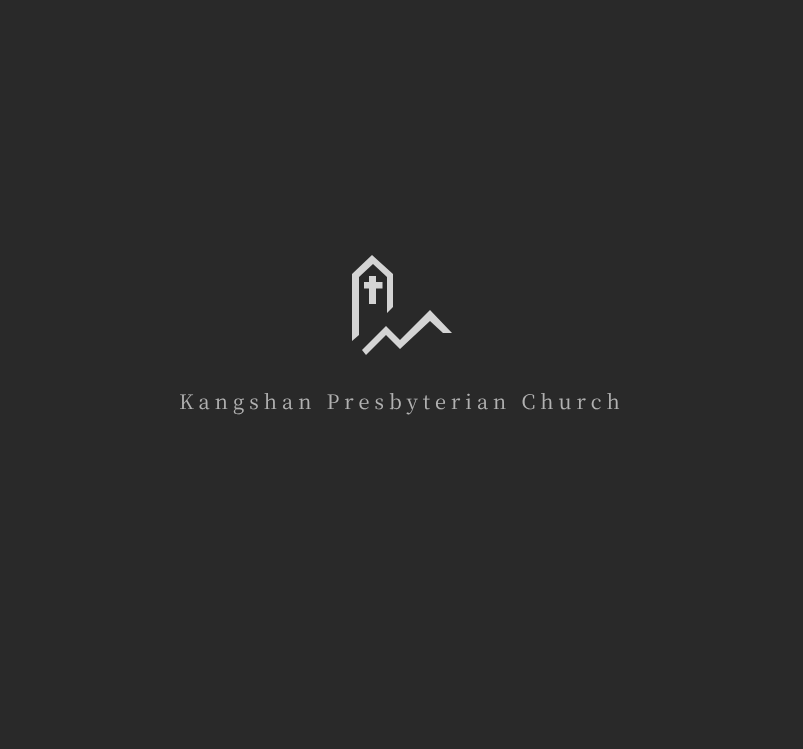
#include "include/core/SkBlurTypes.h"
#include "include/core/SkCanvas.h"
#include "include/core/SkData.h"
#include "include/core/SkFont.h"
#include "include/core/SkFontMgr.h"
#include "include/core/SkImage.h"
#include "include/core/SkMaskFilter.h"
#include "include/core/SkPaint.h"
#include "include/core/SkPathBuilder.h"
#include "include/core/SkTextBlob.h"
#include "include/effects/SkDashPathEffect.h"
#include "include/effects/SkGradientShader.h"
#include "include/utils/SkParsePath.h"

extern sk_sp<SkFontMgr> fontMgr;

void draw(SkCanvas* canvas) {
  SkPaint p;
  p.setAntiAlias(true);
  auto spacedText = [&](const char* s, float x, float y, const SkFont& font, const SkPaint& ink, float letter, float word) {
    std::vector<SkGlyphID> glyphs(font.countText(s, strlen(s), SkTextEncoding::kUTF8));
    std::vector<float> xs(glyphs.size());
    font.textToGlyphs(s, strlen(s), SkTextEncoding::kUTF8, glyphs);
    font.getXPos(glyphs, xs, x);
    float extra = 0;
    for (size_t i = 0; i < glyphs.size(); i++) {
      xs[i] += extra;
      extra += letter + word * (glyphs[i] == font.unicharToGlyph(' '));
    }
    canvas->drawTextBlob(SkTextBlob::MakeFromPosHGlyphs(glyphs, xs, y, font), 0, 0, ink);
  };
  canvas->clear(SkColorSetRGB(41, 41, 41));
  p.setColor(SkColorSetRGB(212, 212, 212));
  canvas->drawPath(SkPathBuilder().moveTo(362, 350).lineTo(366, 355).lineTo(386, 335).lineTo(400, 349).lineTo(430, 321).lineTo(443, 333).lineTo(452, 333).lineTo(430, 310).lineTo(400, 340).lineTo(386, 326).close().detach(), p);
  canvas->drawPath(SkPathBuilder().moveTo(352, 341).lineTo(359, 335).lineTo(359, 277).lineTo(373, 264).lineTo(387, 277).lineTo(387, 313).lineTo(393, 307).lineTo(393, 274).lineTo(372, 255).lineTo(352, 274).close().detach(), p);
  canvas->drawPath(SkPathBuilder().moveTo(382.5f, 282).lineTo(376, 282).lineTo(376, 276).lineTo(369, 276).lineTo(369, 282).lineTo(364, 282).lineTo(364, 288.5f).lineTo(369, 288.5f).lineTo(369, 304).lineTo(376, 304).lineTo(376, 288.5f).lineTo(382.5f, 288.5f).close().detach(), p);
  SkFont font1(fontMgr->matchFamilyStyle("Noto Serif TC", SkFontStyle::Normal()), 20);
  font1.setSubpixel(true);
  p.setColor(SkColorSetRGB(178, 178, 178));
  spacedText("Kangshan Presbyterian Church", 179, 409, font1, p, 5, 0);
}
